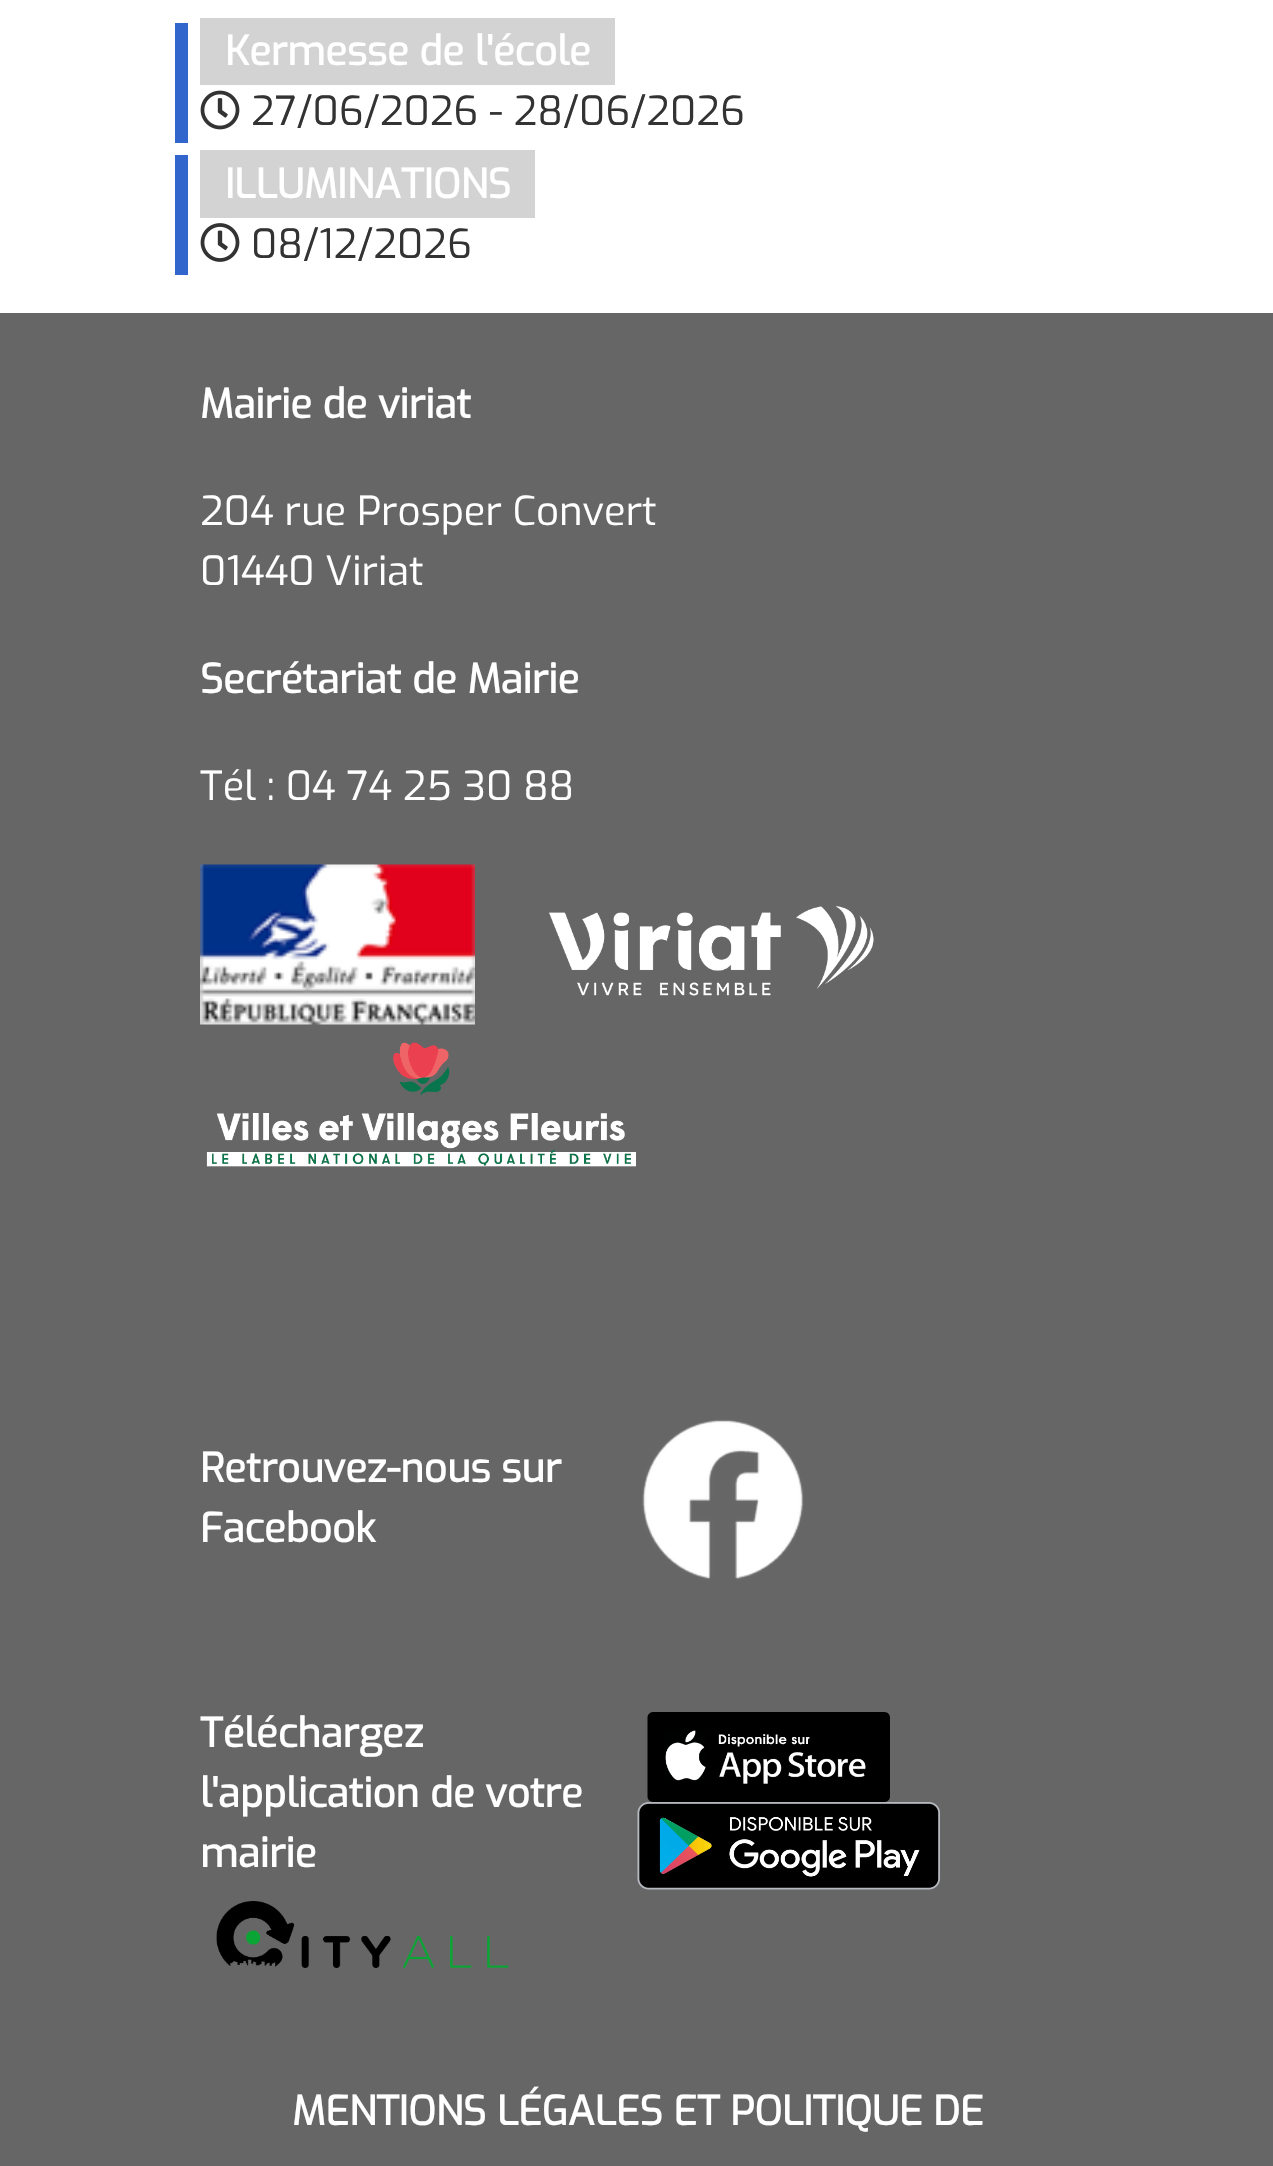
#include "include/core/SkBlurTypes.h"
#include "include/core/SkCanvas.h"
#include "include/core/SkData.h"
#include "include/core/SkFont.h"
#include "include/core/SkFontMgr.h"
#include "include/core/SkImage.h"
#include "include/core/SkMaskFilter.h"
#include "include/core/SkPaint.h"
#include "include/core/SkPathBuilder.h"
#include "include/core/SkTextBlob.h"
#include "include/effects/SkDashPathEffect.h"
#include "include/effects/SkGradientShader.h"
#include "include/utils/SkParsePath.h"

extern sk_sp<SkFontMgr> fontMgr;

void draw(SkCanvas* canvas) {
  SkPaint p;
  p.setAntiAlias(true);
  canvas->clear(SK_ColorWHITE);
  p.setColor(SkColorSetRGB(51, 102, 204));
  canvas->drawRect(SkRect::MakeLTRB(175, 23, 188, 143), p);
  p.setColor(SkColorSetRGB(211, 211, 211));
  canvas->drawRect(SkRect::MakeLTRB(200, 18, 615, 85), p);
  canvas->drawImageRect(SkImages::DeferredFromEncodedData(SkData::MakeFromFileName("images/1.png")), SkRect::MakeLTRB(200, 90, 240, 130), SkSamplingOptions());
  p.setColor(SkColorSetRGB(51, 102, 204));
  canvas->drawRect(SkRect::MakeLTRB(175, 155, 188, 275), p);
  p.setColor(SkColorSetRGB(211, 211, 211));
  canvas->drawRect(SkRect::MakeLTRB(200, 150, 535, 218), p);
  canvas->drawImageRect(SkImages::DeferredFromEncodedData(SkData::MakeFromFileName("images/2.png")), SkRect::MakeLTRB(200, 223, 240, 262), SkSamplingOptions());
  p.setColor(SkColorSetRGB(102, 102, 102));
  canvas->drawRect(SkRect::MakeLTRB(0, 313, 1273, 2166), p);
  canvas->drawImageRect(SkImages::DeferredFromEncodedData(SkData::MakeFromFileName("images/3.png")), SkRect::MakeLTRB(200, 864, 475, 1025), SkSamplingOptions());
  canvas->drawImageRect(SkImages::DeferredFromEncodedData(SkData::MakeFromFileName("images/4.png")), SkRect::MakeLTRB(549, 906, 874, 996), SkSamplingOptions());
  canvas->drawImageRect(SkImages::DeferredFromEncodedData(SkData::MakeFromFileName("images/5.png")), SkRect::MakeLTRB(206, 1042, 636, 1167), SkSamplingOptions());
  canvas->drawImageRect(SkImages::DeferredFromEncodedData(SkData::MakeFromFileName("images/6.png")), SkRect::MakeLTRB(642, 1419, 804, 1580), SkSamplingOptions());
  canvas->drawImageRect(SkImages::DeferredFromEncodedData(SkData::MakeFromFileName("images/7.png")), SkRect::MakeLTRB(216, 1901, 509, 1968), SkSamplingOptions());
  canvas->drawImageRect(SkImages::DeferredFromEncodedData(SkData::MakeFromFileName("images/8.png")), SkRect::MakeLTRB(647, 1712, 890, 1802), SkSamplingOptions());
  canvas->drawImageRect(SkImages::DeferredFromEncodedData(SkData::MakeFromFileName("images/9.png")), SkRect::MakeLTRB(637, 1802, 940, 1890), SkSamplingOptions());
  SkFont font1(fontMgr->matchFamilyStyle("Exo", SkFontStyle::Bold()), 40);
  font1.setSubpixel(true);
  p.setColor(SK_ColorWHITE);
  canvas->drawString("Kermesse de l'école", 225, 65, font1, p);
  SkFont font2(fontMgr->matchFamilyStyle("Exo", SkFontStyle::Normal()), 40);
  font2.setSubpixel(true);
  p.setColor(SkColorSetRGB(51, 51, 51));
  canvas->drawString("27/06/2026 - 28/06/2026", 251, 125, font2, p);
  p.setColor(SK_ColorWHITE);
  canvas->drawString("ILLUMINATIONS", 225, 198, font1, p);
  p.setColor(SkColorSetRGB(51, 51, 51));
  canvas->drawString("08/12/2026", 251, 258, font2, p);
  p.setColor(SK_ColorWHITE);
  canvas->drawString("Mairie de viriat", 200, 418, font1, p);
  canvas->drawString("204 rue Prosper Convert", 200, 525, font2, p);
  canvas->drawString("01440 Viriat", 200, 585, font2, p);
  canvas->drawString("Secrétariat de Mairie", 200, 693, font1, p);
  canvas->drawString("Tél : 04 74 25 30 88", 200, 800, font2, p);
  canvas->drawString("Retrouvez-nous sur", 200, 1482, font1, p);
  canvas->drawString("Facebook", 200, 1542, font1, p);
  canvas->drawString("Téléchargez", 200, 1747, font1, p);
  canvas->drawString("l'application de votre", 200, 1807, font1, p);
  canvas->drawString("mairie", 200, 1867, font1, p);
  canvas->drawString("MENTIONS LÉGALES ET POLITIQUE DE", 292, 2125, font1, p);
}
